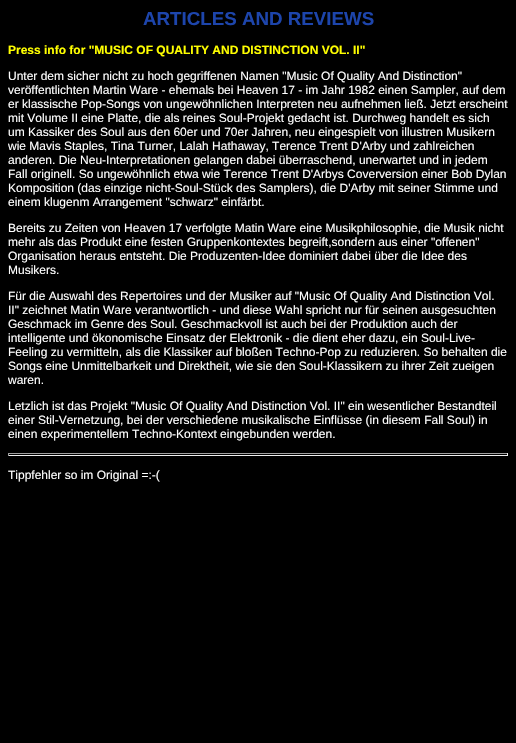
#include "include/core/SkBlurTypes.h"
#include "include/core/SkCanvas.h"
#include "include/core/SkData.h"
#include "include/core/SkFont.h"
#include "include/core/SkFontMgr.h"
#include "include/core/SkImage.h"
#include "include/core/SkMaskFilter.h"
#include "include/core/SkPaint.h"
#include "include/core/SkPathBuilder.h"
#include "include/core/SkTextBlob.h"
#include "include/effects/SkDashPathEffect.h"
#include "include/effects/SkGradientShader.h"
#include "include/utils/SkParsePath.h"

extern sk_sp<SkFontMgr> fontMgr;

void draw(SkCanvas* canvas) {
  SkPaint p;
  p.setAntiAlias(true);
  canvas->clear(SK_ColorBLACK);
  p.setColor(SkColorSetRGB(159, 159, 159));
  canvas->drawRect(SkRect::MakeLTRB(8, 453, 508, 454), p);
  p.setColor(SkColorSetRGB(238, 238, 238));
  canvas->drawRect(SkRect::MakeLTRB(507, 453, 508, 456), p);
  canvas->drawRect(SkRect::MakeLTRB(8, 455, 508, 456), p);
  p.setColor(SkColorSetRGB(159, 159, 159));
  canvas->drawRect(SkRect::MakeLTRB(8, 453, 9, 456), p);
  SkFont font1(fontMgr->matchFamilyStyle("Liberation Sans", SkFontStyle::Bold()), 18.75f);
  font1.setSubpixel(true);
  p.setColor(SkColorSetRGB(29, 69, 172));
  canvas->drawString("ARTICLES AND REVIEWS", 143, 25, font1, p);
  SkFont font2(fontMgr->matchFamilyStyle("Liberation Sans", SkFontStyle::Bold()), 12);
  font2.setSubpixel(true);
  p.setColor(SkColorSetRGB(255, 255, 0));
  canvas->drawString("Press info for \"MUSIC OF QUALITY AND DISTINCTION VOL. II\"", 8, 54, font2, p);
  SkFont font3(fontMgr->matchFamilyStyle("Liberation Sans", SkFontStyle::Normal()), 12);
  font3.setSubpixel(true);
  p.setColor(SK_ColorWHITE);
  canvas->drawString("Unter dem sicher nicht zu hoch gegriffenen Namen \"Music Of Quality And Distinction\"", 8, 80, font3, p);
  canvas->drawString("veröffentlichten Martin Ware - ehemals bei Heaven 17 - im Jahr 1982 einen Sampler, auf dem", 8, 94, font3, p);
  canvas->drawString("er klassische Pop-Songs von ungewöhnlichen Interpreten neu aufnehmen ließ. Jetzt erscheint", 8, 108, font3, p);
  canvas->drawString("mit Volume II eine Platte, die als reines Soul-Projekt gedacht ist. Durchweg handelt es sich", 8, 122, font3, p);
  canvas->drawString("um Kassiker des Soul aus den 60er und 70er Jahren, neu eingespielt von illustren Musikern", 8, 136, font3, p);
  canvas->drawString("wie Mavis Staples, Tina Turner, Lalah Hathaway, Terence Trent D'Arby und zahlreichen", 8, 150, font3, p);
  canvas->drawString("anderen. Die Neu-Interpretationen gelangen dabei überraschend, unerwartet und in jedem", 8, 164, font3, p);
  canvas->drawString("Fall originell. So ungewöhnlich etwa wie Terence Trent D'Arbys Coverversion einer Bob Dylan", 8, 178, font3, p);
  canvas->drawString("Komposition (das einzige nicht-Soul-Stück des Samplers), die D'Arby mit seiner Stimme und", 8, 192, font3, p);
  canvas->drawString("einem klugenm Arrangement \"schwarz\" einfärbt.", 8, 206, font3, p);
  canvas->drawString("Bereits zu Zeiten von Heaven 17 verfolgte Matin Ware eine Musikphilosophie, die Musik nicht", 8, 232, font3, p);
  canvas->drawString("mehr als das Produkt eine festen Gruppenkontextes begreift,sondern aus einer \"offenen\"", 8, 246, font3, p);
  canvas->drawString("Organisation heraus entsteht. Die Produzenten-Idee dominiert dabei über die Idee des", 8, 260, font3, p);
  canvas->drawString("Musikers.", 8, 274, font3, p);
  canvas->drawString("Für die Auswahl des Repertoires und der Musiker auf \"Music Of Quality And Distinction Vol.", 8, 300, font3, p);
  canvas->drawString("II\" zeichnet Matin Ware verantwortlich - und diese Wahl spricht nur für seinen ausgesuchten", 8, 314, font3, p);
  canvas->drawString("Geschmack im Genre des Soul. Geschmackvoll ist auch bei der Produktion auch der", 8, 328, font3, p);
  canvas->drawString("intelligente und ökonomische Einsatz der Elektronik - die dient eher dazu, ein Soul-Live-", 8, 342, font3, p);
  canvas->drawString("Feeling zu vermitteln, als die Klassiker auf bloßen Techno-Pop zu reduzieren. So behalten die", 8, 356, font3, p);
  canvas->drawString("Songs eine Unmittelbarkeit und Direktheit, wie sie den Soul-Klassikern zu ihrer Zeit zueigen", 8, 370, font3, p);
  canvas->drawString("waren.", 8, 384, font3, p);
  canvas->drawString("Letzlich ist das Projekt \"Music Of Quality And Distinction Vol. II\" ein wesentlicher Bestandteil", 8, 410, font3, p);
  canvas->drawString("einer Stil-Vernetzung, bei der verschiedene musikalische Einflüsse (in diesem Fall Soul) in", 8, 424, font3, p);
  canvas->drawString("einen experimentellem Techno-Kontext eingebunden werden.", 8, 438, font3, p);
  canvas->drawString("Tippfehler so im Original =:-(", 8, 479, font3, p);
}
